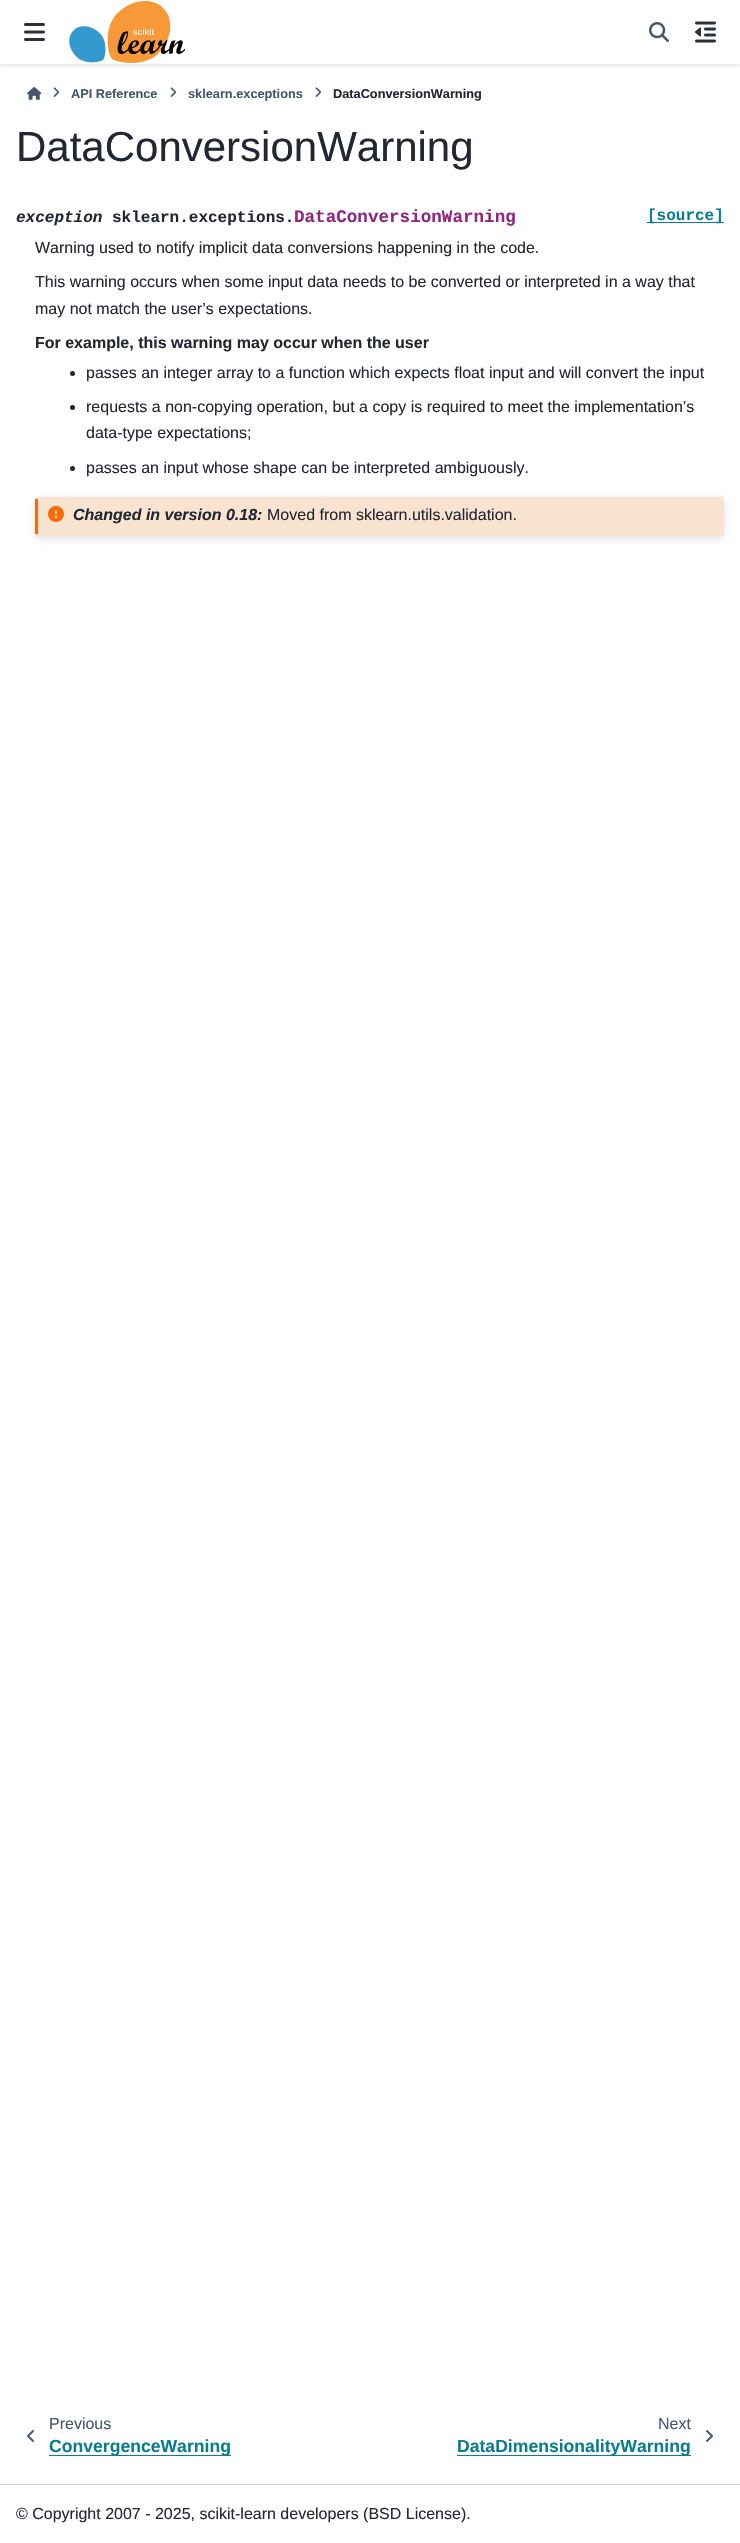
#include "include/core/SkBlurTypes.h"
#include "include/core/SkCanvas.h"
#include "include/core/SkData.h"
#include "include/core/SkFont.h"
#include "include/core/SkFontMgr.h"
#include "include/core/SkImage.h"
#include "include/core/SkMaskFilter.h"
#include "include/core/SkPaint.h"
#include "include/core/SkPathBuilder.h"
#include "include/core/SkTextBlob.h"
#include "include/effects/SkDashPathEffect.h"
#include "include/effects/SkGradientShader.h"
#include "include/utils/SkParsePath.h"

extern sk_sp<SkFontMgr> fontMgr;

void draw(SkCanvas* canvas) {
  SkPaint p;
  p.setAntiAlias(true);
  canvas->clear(SK_ColorWHITE);
  canvas->save();
  canvas->clipRect(SkRect::MakeLTRB(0, 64, 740, 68));
  p.setColor(SkColorSetARGB(26, 0, 0, 0));
  p.setMaskFilter(SkMaskFilter::MakeBlur(kNormal_SkBlurStyle, 2));
  canvas->drawRect(SkRect::MakeLTRB(0, 2, 740, 66), p);
  p.setMaskFilter(nullptr);
  canvas->restore();
  canvas->drawImageRect(SkImages::DeferredFromEncodedData(SkData::MakeFromFileName("images/1.png")), SkRect::MakeLTRB(24, 23, 45, 41), SkSamplingOptions());
  canvas->drawImageRect(SkImages::DeferredFromEncodedData(SkData::MakeFromFileName("images/2.png")), SkRect::MakeLTRB(69, 1, 185, 63), SkSamplingOptions());
  canvas->drawImageRect(SkImages::DeferredFromEncodedData(SkData::MakeFromFileName("images/3.png")), SkRect::MakeLTRB(649, 22, 669, 42), SkSamplingOptions());
  canvas->drawImageRect(SkImages::DeferredFromEncodedData(SkData::MakeFromFileName("images/4.png")), SkRect::MakeLTRB(694, 21, 716, 43), SkSamplingOptions());
  canvas->drawImageRect(SkImages::DeferredFromEncodedData(SkData::MakeFromFileName("images/5.png")), SkRect::MakeLTRB(27, 87, 41, 100), SkSamplingOptions());
  canvas->drawImageRect(SkImages::DeferredFromEncodedData(SkData::MakeFromFileName("images/6.png")), SkRect::MakeLTRB(53, 87, 60, 97), SkSamplingOptions());
  canvas->drawImageRect(SkImages::DeferredFromEncodedData(SkData::MakeFromFileName("images/6.png")), SkRect::MakeLTRB(170, 87, 177, 97), SkSamplingOptions());
  canvas->drawImageRect(SkImages::DeferredFromEncodedData(SkData::MakeFromFileName("images/6.png")), SkRect::MakeLTRB(315, 87, 322, 97), SkSamplingOptions());
  p.setColor(SkColorSetRGB(10, 125, 145));
  canvas->drawRect(SkRect::MakeLTRB(647, 222, 724, 223), p);
  p.setColor(SkColorSetRGB(34, 40, 50));
  canvas->drawCircle(72.5f, 373.5f, 2.5f, p);
  canvas->drawCircle(72.5f, 407.5f, 2.5f, p);
  canvas->drawCircle(72.5f, 468.5f, 2.5f, p);
  p.setColor(SkColorSetARGB(26, 0, 0, 0));
  p.setMaskFilter(SkMaskFilter::MakeBlur(kNormal_SkBlurStyle, 0.5f));
  canvas->drawRoundRect(SkRect::MakeLTRB(35, 497, 724, 536), 4, 4, p);
  p.setMaskFilter(nullptr);
  p.setMaskFilter(SkMaskFilter::MakeBlur(kNormal_SkBlurStyle, 4));
  canvas->drawRoundRect(SkRect::MakeLTRB(35, 500, 724, 539), 4, 4, p);
  p.setMaskFilter(nullptr);
  p.setColor(SkColorSetRGB(248, 227, 208));
  canvas->drawRoundRect(SkRect::MakeLTRB(35, 497, 724, 536), 4, 4, p);
  p.setColor(SkColorSetRGB(246, 106, 10));
  canvas->drawRect(SkRect::MakeLTRB(35, 499, 38, 534), p);
  canvas->drawImageRect(SkImages::DeferredFromEncodedData(SkData::MakeFromFileName("images/7.png")), SkRect::MakeLTRB(48, 506, 64, 522), SkSamplingOptions());
  canvas->drawImageRect(SkImages::DeferredFromEncodedData(SkData::MakeFromFileName("images/8.png")), SkRect::MakeLTRB(27, 2430, 34, 2442), SkSamplingOptions());
  p.setColor(SkColorSetRGB(10, 125, 145));
  canvas->drawRect(SkRect::MakeLTRB(49, 2455, 231, 2456), p);
  canvas->drawRect(SkRect::MakeLTRB(457, 2455, 691, 2456), p);
  canvas->drawImageRect(SkImages::DeferredFromEncodedData(SkData::MakeFromFileName("images/9.png")), SkRect::MakeLTRB(706, 2430, 713, 2442), SkSamplingOptions());
  p.setColor(SkColorSetRGB(209, 213, 218));
  canvas->drawRect(SkRect::MakeLTRB(0, 2484, 740, 2485), p);
  SkFont font1(fontMgr->matchFamilyStyle("Liberation Sans", SkFontStyle::Bold()), 12.75f);
  font1.setSubpixel(true);
  p.setColor(SkColorSetRGB(72, 86, 107));
  canvas->drawString("API Reference", 71, 98, font1, p);
  canvas->drawString("sklearn.exceptions", 188, 98, font1, p);
  p.setColor(SkColorSetRGB(34, 40, 50));
  canvas->drawString("DataConversionWarning", 333, 98, font1, p);
  SkFont font2(fontMgr->matchFamilyStyle("Liberation Sans", SkFontStyle::Normal()), 42);
  font2.setSubpixel(true);
  canvas->drawString("DataConversionWarning", 16, 161, font2, p);
  SkFont font3(fontMgr->matchFamilyStyle("Liberation Mono", SkFontStyle::BoldItalic()), 16);
  font3.setSubpixel(true);
  canvas->drawString("exception", 16, 222, font3, p);
  SkFont font4(fontMgr->matchFamilyStyle("Liberation Mono", SkFontStyle::Bold()), 16);
  font4.setSubpixel(true);
  canvas->drawString("sklearn.exceptions.", 112, 222, font4, p);
  SkFont font5(fontMgr->matchFamilyStyle("Liberation Mono", SkFontStyle::Bold()), 17.6f);
  font5.setSubpixel(true);
  p.setColor(SkColorSetRGB(145, 37, 131));
  canvas->drawString("DataConversionWarning", 294, 222, font5, p);
  p.setColor(SkColorSetRGB(10, 125, 145));
  canvas->drawString("[source]", 647, 220, font4, p);
  SkFont font6(fontMgr->matchFamilyStyle("Liberation Sans", SkFontStyle::Normal()), 16);
  font6.setSubpixel(true);
  p.setColor(SkColorSetRGB(34, 40, 50));
  canvas->drawString("Warning used to notify implicit data conversions happening in the code.", 35, 253, font6, p);
  canvas->drawString("This warning occurs when some input data needs to be converted or interpreted in a way that", 35, 287, font6, p);
  canvas->drawString("may not match the user’s expectations.", 35, 314, font6, p);
  SkFont font7(fontMgr->matchFamilyStyle("Liberation Sans", SkFontStyle::Bold()), 16);
  font7.setSubpixel(true);
  canvas->drawString("For example, this warning may occur when the user", 35, 348, font7, p);
  canvas->drawString("passes an integer array to a function which expects float input and will convert the input", 86, 378, font6, p);
  canvas->drawString("requests a non-copying operation, but a copy is required to meet the implementation’s", 86, 412, font6, p);
  canvas->drawString("data-type expectations;", 86, 438, font6, p);
  canvas->drawString("passes an input whose shape can be interpreted ambiguously.", 86, 473, font6, p);
  SkFont font8(fontMgr->matchFamilyStyle("Liberation Sans", SkFontStyle::BoldItalic()), 16);
  font8.setSubpixel(true);
  canvas->drawString("Changed in version 0.18:", 73, 520, font8, p);
  canvas->drawString("Moved from sklearn.utils.validation.", 267, 520, font6, p);
  p.setColor(SkColorSetRGB(72, 86, 107));
  canvas->drawString("Previous", 49, 2429, font6, p);
  SkFont font9(fontMgr->matchFamilyStyle("Liberation Sans", SkFontStyle::Bold()), 17.6f);
  font9.setSubpixel(true);
  p.setColor(SkColorSetRGB(10, 125, 145));
  canvas->drawString("ConvergenceWarning", 49, 2452, font9, p);
  p.setColor(SkColorSetRGB(72, 86, 107));
  canvas->drawString("Next", 658, 2429, font6, p);
  p.setColor(SkColorSetRGB(10, 125, 145));
  canvas->drawString("DataDimensionalityWarning", 457, 2452, font9, p);
  p.setColor(SkColorSetRGB(34, 40, 50));
  canvas->drawString("© Copyright 2007 - 2025, scikit-learn developers (BSD License).", 16, 2519, font6, p);
}
